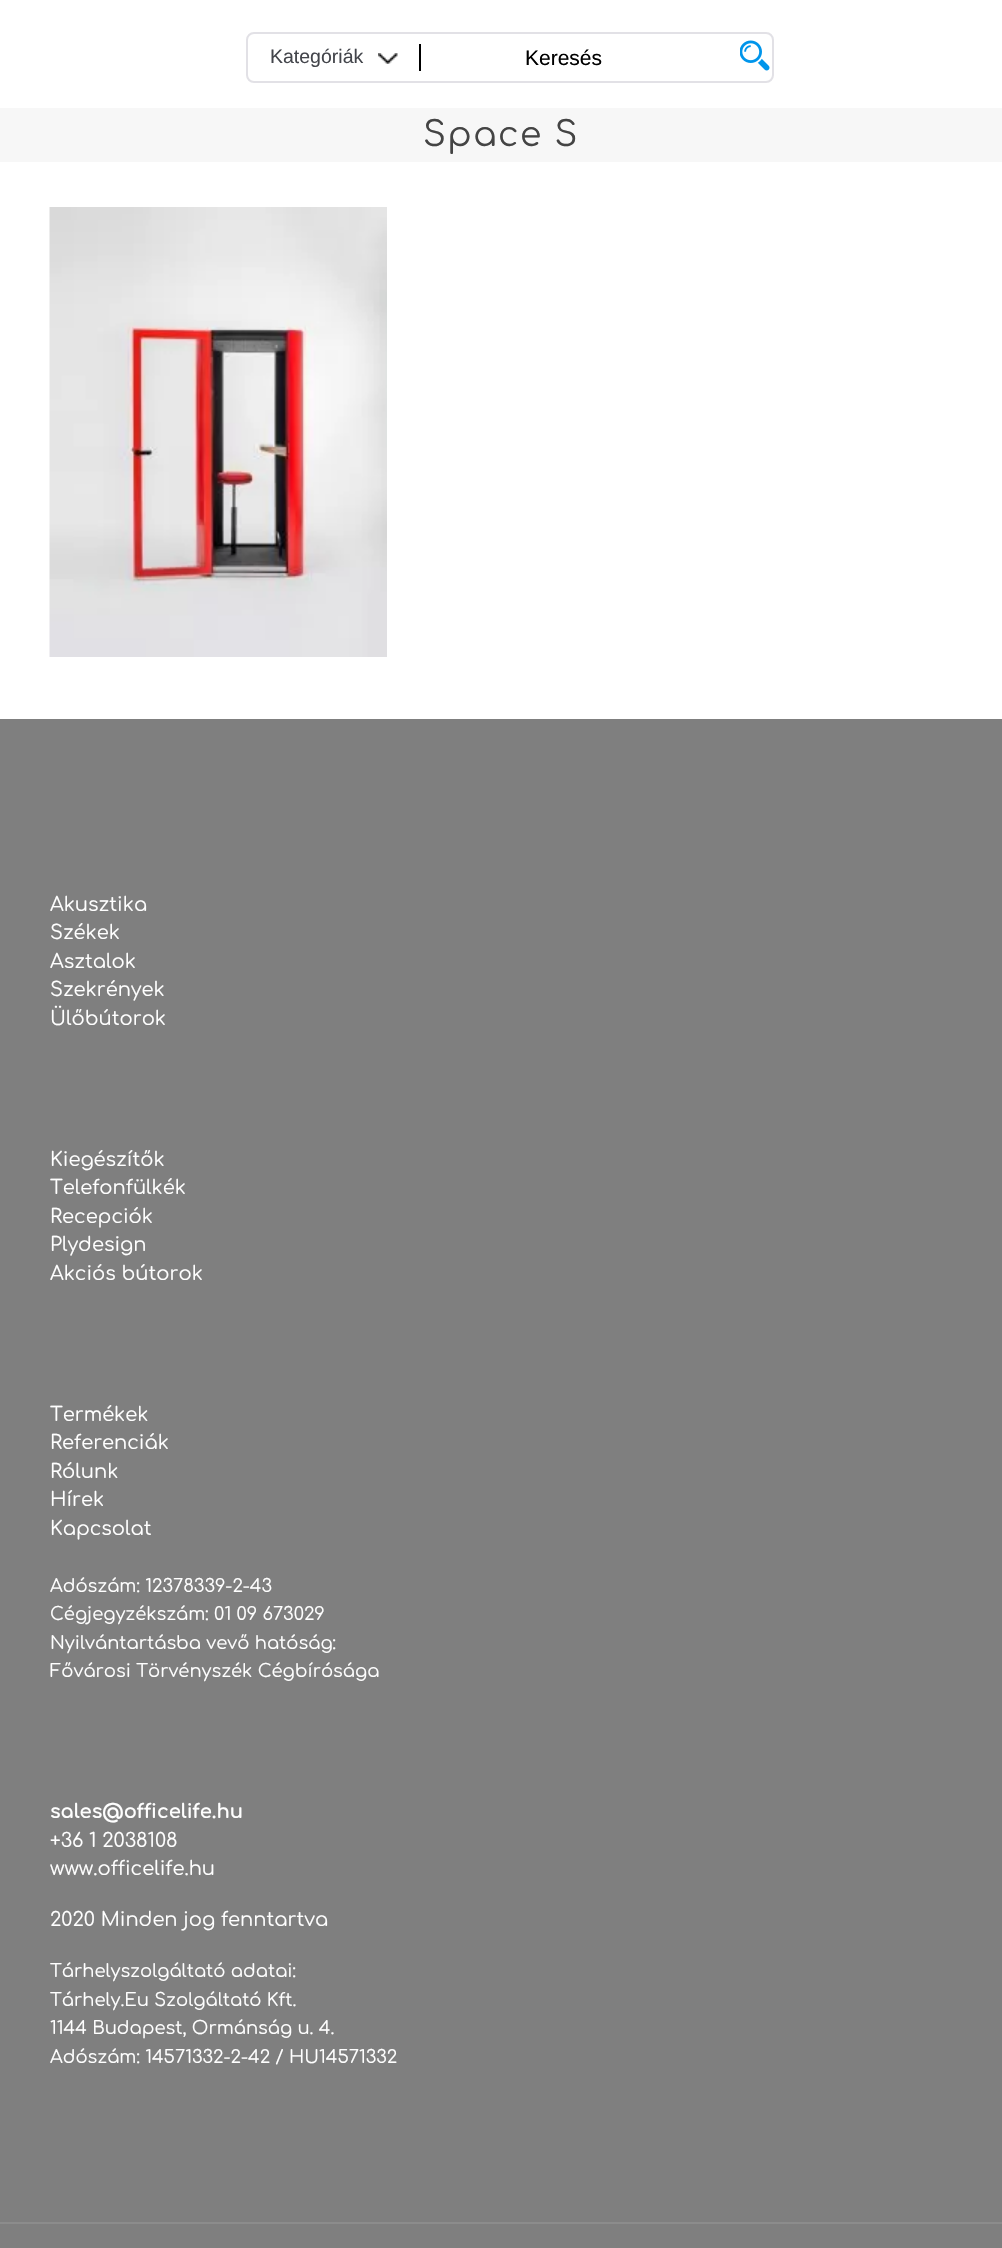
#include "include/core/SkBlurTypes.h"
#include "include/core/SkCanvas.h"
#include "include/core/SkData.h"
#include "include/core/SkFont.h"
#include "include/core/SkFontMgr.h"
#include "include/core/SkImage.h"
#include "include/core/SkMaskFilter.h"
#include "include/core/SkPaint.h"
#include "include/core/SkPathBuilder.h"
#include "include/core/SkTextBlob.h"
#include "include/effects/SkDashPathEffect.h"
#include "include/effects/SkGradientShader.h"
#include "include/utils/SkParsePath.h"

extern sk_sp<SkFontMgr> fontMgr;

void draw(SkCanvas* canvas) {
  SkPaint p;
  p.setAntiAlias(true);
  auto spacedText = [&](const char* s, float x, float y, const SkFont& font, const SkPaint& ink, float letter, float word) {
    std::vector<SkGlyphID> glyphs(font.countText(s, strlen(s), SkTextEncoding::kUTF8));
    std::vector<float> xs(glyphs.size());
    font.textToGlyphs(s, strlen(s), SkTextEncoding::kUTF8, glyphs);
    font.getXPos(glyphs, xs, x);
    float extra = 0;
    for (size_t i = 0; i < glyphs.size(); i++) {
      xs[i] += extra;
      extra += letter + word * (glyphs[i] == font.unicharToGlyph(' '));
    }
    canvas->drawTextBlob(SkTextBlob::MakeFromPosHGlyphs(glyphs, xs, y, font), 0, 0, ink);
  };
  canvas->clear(SK_ColorWHITE);
  p.setStyle(SkPaint::kStroke_Style);
  p.setStrokeWidth(2);
  p.setColor(SkColorSetRGB(226, 225, 230));
  canvas->drawRoundRect(SkRect::MakeLTRB(247, 33, 773, 82), 7, 7, p);
  canvas->drawImageRect(SkImages::DeferredFromEncodedData(SkData::MakeFromFileName("images/1.png")), SkRect::MakeLTRB(378, 53, 398, 64), SkSamplingOptions());
  p.setStyle(SkPaint::kFill_Style);
  p.setColor(SK_ColorBLACK);
  canvas->drawRect(SkRect::MakeLTRB(419, 44, 421, 71), p);
  canvas->drawImageRect(SkImages::DeferredFromEncodedData(SkData::MakeFromFileName("images/2.png")), SkRect::MakeLTRB(740, 40, 770, 71), SkSamplingOptions());
  p.setColor(SkColorSetRGB(247, 247, 247));
  canvas->drawRect(SkRect::MakeLTRB(0, 108, 1002, 162), p);
  canvas->drawImageRect(SkImages::DeferredFromEncodedData(SkData::MakeFromFileName("images/3.png")), SkRect::MakeLTRB(49, 207, 387, 657), SkSamplingOptions());
  p.setColor(SkColorSetRGB(127, 127, 127));
  canvas->drawRect(SkRect::MakeLTRB(0, 719, 1002, 2248), p);
  p.setColor(SkColorSetRGB(140, 140, 140));
  canvas->drawRect(SkRect::MakeLTRB(0, 2222, 1002, 2224), p);
  SkFont font1(fontMgr->matchFamilyStyle("Liberation Sans", SkFontStyle::Normal()), 19.5f);
  font1.setSubpixel(true);
  p.setColor(SkColorSetRGB(67, 69, 75));
  canvas->drawString("Kategóriák", 270, 63, font1, p);
  SkFont font2(fontMgr->matchFamilyStyle("Liberation Sans", SkFontStyle::Normal()), 21);
  font2.setSubpixel(true);
  p.setColor(SK_ColorBLACK);
  canvas->drawString("Keresés", 525, 65, font2, p);
  SkFont font3(fontMgr->matchFamilyStyle("Comfortaa", SkFontStyle::Normal()), 34.5f);
  font3.setSubpixel(true);
  p.setColor(SkColorSetRGB(68, 68, 68));
  spacedText("Space S", 423, 146, font3, p, 1.5f, 0);
  SkFont font4(fontMgr->matchFamilyStyle("Comfortaa", SkFontStyle::Normal()), 19.5f);
  font4.setSubpixel(true);
  p.setColor(SK_ColorWHITE);
  canvas->drawString("Akusztika", 50, 911, font4, p);
  canvas->drawString("Székek", 50, 939, font4, p);
  canvas->drawString("Asztalok", 50, 968, font4, p);
  canvas->drawString("Szekrények", 50, 996, font4, p);
  canvas->drawString("Ülőbútorok", 50, 1025, font4, p);
  canvas->drawString("Kiegészítők", 50, 1166, font4, p);
  canvas->drawString("Telefonfülkék", 50, 1194, font4, p);
  canvas->drawString("Recepciók", 50, 1223, font4, p);
  canvas->drawString("Plydesign", 50, 1251, font4, p);
  canvas->drawString("Akciós bútorok", 50, 1280, font4, p);
  canvas->drawString("Termékek", 50, 1421, font4, p);
  canvas->drawString("Referenciák", 50, 1449, font4, p);
  canvas->drawString("Rólunk", 50, 1478, font4, p);
  canvas->drawString("Hírek", 50, 1506, font4, p);
  canvas->drawString("Kapcsolat", 50, 1535, font4, p);
  SkFont font5(fontMgr->matchFamilyStyle("Comfortaa", SkFontStyle::Normal()), 18);
  font5.setSubpixel(true);
  canvas->drawString("Adószám: 12378339-2-43", 50, 1592, font5, p);
  canvas->drawString("Cégjegyzékszám: 01 09 673029", 50, 1620, font5, p);
  canvas->drawString("Nyilvántartásba vevő hatóság:", 50, 1649, font5, p);
  canvas->drawString("Fővárosi Törvényszék Cégbírósága", 50, 1677, font5, p);
  SkFont font6(fontMgr->matchFamilyStyle("Comfortaa", SkFontStyle::Bold()), 19.5f);
  font6.setSubpixel(true);
  canvas->drawString("sales@officelife.hu", 50, 1818, font6, p);
  canvas->drawString("+36 1 2038108", 50, 1847, font4, p);
  canvas->drawString("www.officelife.hu", 50, 1875, font4, p);
  canvas->drawString("2020 Minden jog fenntartva", 50, 1926, font4, p);
  canvas->drawString("Tárhelyszolgáltató adatai:", 50, 1977, font5, p);
  canvas->drawString("Tárhely.Eu Szolgáltató Kft.", 50, 2006, font5, p);
  canvas->drawString("1144 Budapest, Ormánság u. 4.", 50, 2034, font5, p);
  canvas->drawString("Adószám: 14571332-2-42 / HU14571332", 50, 2063, font5, p);
}
